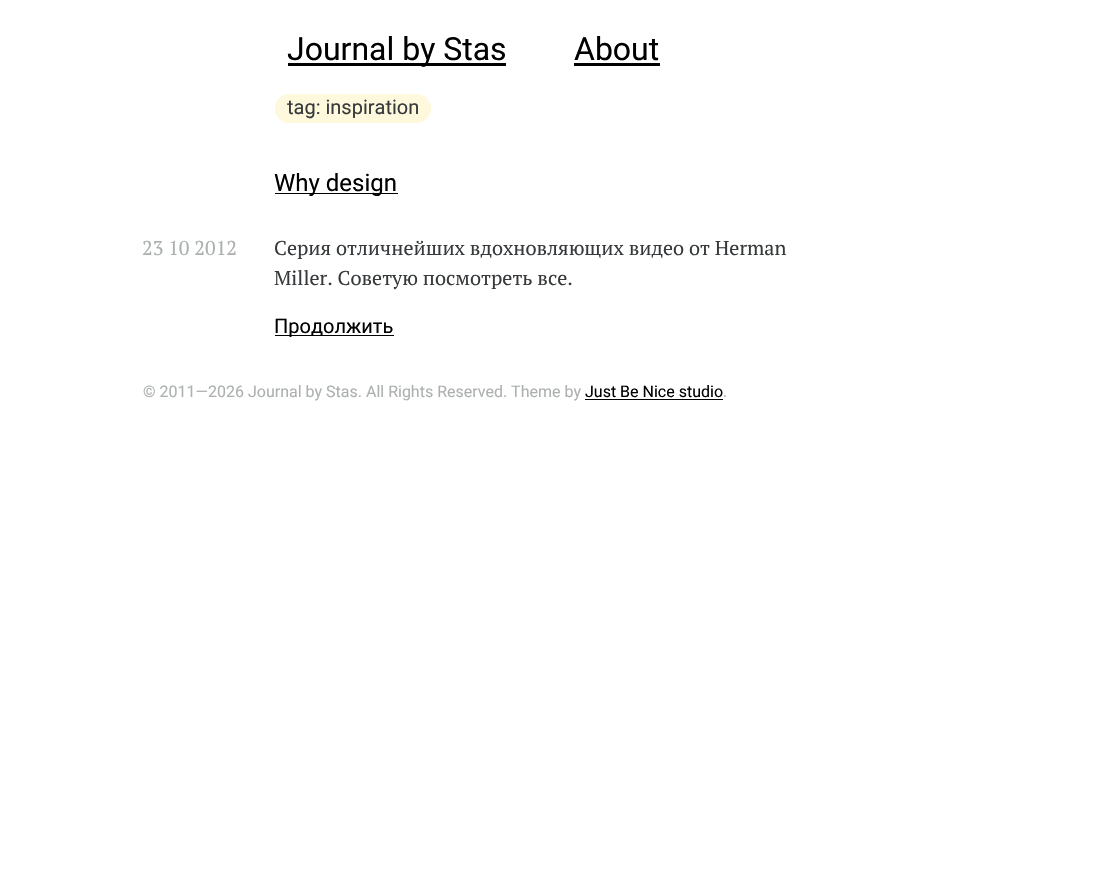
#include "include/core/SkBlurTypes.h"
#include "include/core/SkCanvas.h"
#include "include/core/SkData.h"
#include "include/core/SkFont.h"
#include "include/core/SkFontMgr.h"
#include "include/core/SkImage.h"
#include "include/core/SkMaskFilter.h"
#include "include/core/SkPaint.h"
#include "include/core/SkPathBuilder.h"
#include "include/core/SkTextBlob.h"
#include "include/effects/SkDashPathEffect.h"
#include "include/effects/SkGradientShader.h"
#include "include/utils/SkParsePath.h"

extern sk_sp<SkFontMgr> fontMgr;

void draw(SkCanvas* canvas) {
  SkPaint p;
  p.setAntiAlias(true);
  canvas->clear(SK_ColorWHITE);
  p.setColor(SK_ColorBLACK);
  canvas->drawRect(SkRect::MakeLTRB(288, 63, 506, 66), p);
  canvas->drawRect(SkRect::MakeLTRB(574, 63, 660, 66), p);
  p.setColor(SkColorSetRGB(254, 248, 220));
  canvas->drawRoundRect(SkRect::MakeLTRB(275, 94, 431, 123), 14.5f, 14.5f, p);
  p.setColor(SK_ColorBLACK);
  canvas->drawRect(SkRect::MakeLTRB(275, 193, 398, 194), p);
  canvas->drawRect(SkRect::MakeLTRB(275, 335, 394, 336), p);
  canvas->drawRect(SkRect::MakeLTRB(585, 399, 723, 400), p);
  SkFont font1(fontMgr->matchFamilyStyle("Roboto", SkFontStyle::Normal()), 32);
  font1.setSubpixel(true);
  canvas->drawString("Journal by Stas", 287, 60, font1, p);
  canvas->drawString("About", 574, 60, font1, p);
  SkFont font2(fontMgr->matchFamilyStyle("Roboto", SkFontStyle::Normal()), 20);
  font2.setSubpixel(true);
  p.setColor(SkColorSetRGB(55, 58, 60));
  canvas->drawString("tag: inspiration", 287, 114, font2, p);
  SkFont font3(fontMgr->matchFamilyStyle("Roboto", SkFontStyle::Normal()), 24);
  font3.setSubpixel(true);
  p.setColor(SK_ColorBLACK);
  canvas->drawString("Why design", 274, 191, font3, p);
  SkFont font4(fontMgr->matchFamilyStyle("PT Serif", SkFontStyle::Normal()), 20);
  font4.setSubpixel(true);
  p.setColor(SkColorSetRGB(172, 176, 177));
  canvas->drawString("23 10 2012", 142, 255, font4, p);
  p.setColor(SkColorSetRGB(55, 58, 60));
  canvas->drawString("Серия отличнейших вдохновляющих видео от Herman", 274, 255, font4, p);
  canvas->drawString("Miller. Советую посмотреть все.", 274, 285, font4, p);
  p.setColor(SK_ColorBLACK);
  canvas->drawString("Продолжить", 274, 333, font2, p);
  SkFont font5(fontMgr->matchFamilyStyle("Roboto", SkFontStyle::Normal()), 16);
  font5.setSubpixel(true);
  p.setColor(SkColorSetRGB(172, 176, 177));
  canvas->drawString("© 2011—2026 Journal by Stas. All Rights Reserved. Theme by", 143, 397, font5, p);
  p.setColor(SK_ColorBLACK);
  canvas->drawString("Just Be Nice studio", 585, 397, font5, p);
  p.setColor(SkColorSetRGB(172, 176, 177));
  canvas->drawString(".", 723, 397, font5, p);
}
